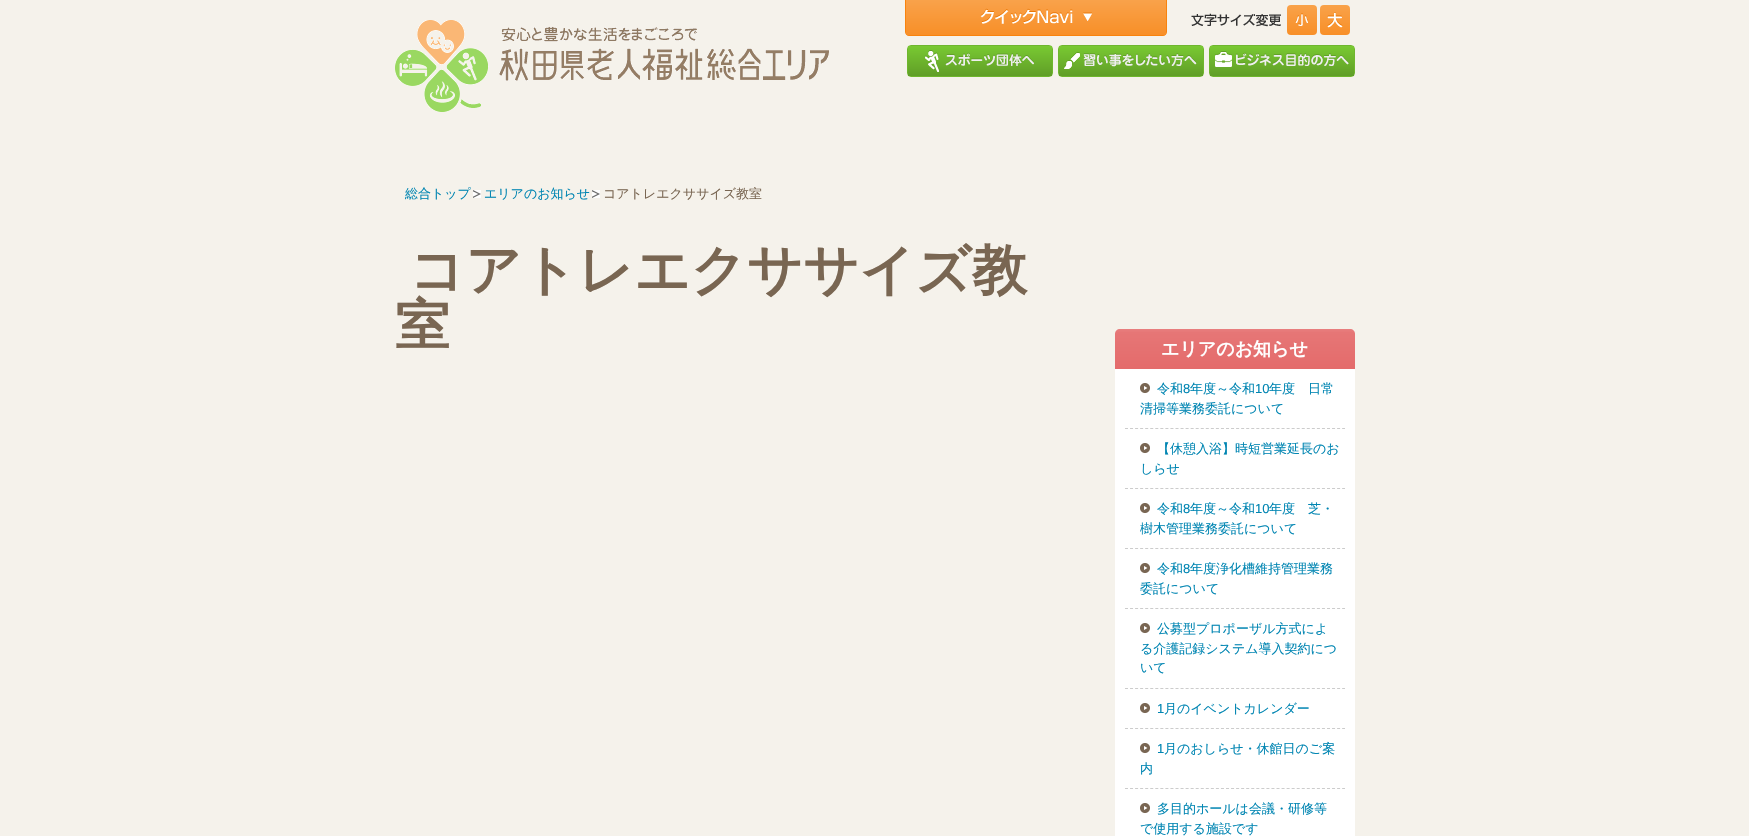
#include "include/core/SkBlurTypes.h"
#include "include/core/SkCanvas.h"
#include "include/core/SkData.h"
#include "include/core/SkFont.h"
#include "include/core/SkFontMgr.h"
#include "include/core/SkImage.h"
#include "include/core/SkMaskFilter.h"
#include "include/core/SkPaint.h"
#include "include/core/SkPathBuilder.h"
#include "include/core/SkTextBlob.h"
#include "include/effects/SkDashPathEffect.h"
#include "include/effects/SkGradientShader.h"
#include "include/utils/SkParsePath.h"

extern sk_sp<SkFontMgr> fontMgr;

void draw(SkCanvas* canvas) {
  SkPaint p;
  p.setAntiAlias(true);
  canvas->clear(SkColorSetRGB(245, 242, 235));
  canvas->drawImageRect(SkImages::DeferredFromEncodedData(SkData::MakeFromFileName("images/1.png")), SkRect::MakeLTRB(395, 20, 829, 112), SkSamplingOptions());
  p.setColor(SkColorSetRGB(249, 131, 13));
  canvas->drawPath(SkPathBuilder(SkPathFillType::kEvenOdd).moveTo(905, 0).lineTo(1167, 0).lineTo(1167, 32).cubicTo(1167, 34, 1165, 36, 1163, 36).lineTo(909, 36).cubicTo(907, 36, 905, 34, 905, 32).close().moveTo(906, 0).lineTo(1166, 0).lineTo(1166, 32).cubicTo(1166, 34, 1165, 35, 1163, 35).lineTo(909, 35).cubicTo(907, 35, 906, 34, 906, 32).close().detach(), p);
  {
    const SkColor colors[] = {SkColorSetRGB(249, 162, 74), SkColorSetRGB(248, 143, 39)};
    const float stops[] = {0, 1};
    const SkPoint ends[] = {{1036, 0}, {1036, 35}};
    p.setShader(SkGradientShader::MakeLinear(ends, colors, stops, 2, SkTileMode::kClamp));
    p.setAlpha(255);
  }
  canvas->drawRect(SkRect::MakeLTRB(906, 0, 1166, 35), p);
  canvas->drawImageRect(SkImages::DeferredFromEncodedData(SkData::MakeFromFileName("images/2.png")), SkRect::MakeLTRB(980, 8, 1092, 24), SkSamplingOptions());
  canvas->drawImageRect(SkImages::DeferredFromEncodedData(SkData::MakeFromFileName("images/3.png")), SkRect::MakeLTRB(1191, 13, 1281, 27), SkSamplingOptions());
  {
    const SkColor colors[] = {SkColorSetRGB(249, 162, 74), SkColorSetRGB(248, 143, 39)};
    const float stops[] = {0, 1};
    const SkPoint ends[] = {{1302, 5}, {1302, 35}};
    p.setShader(SkGradientShader::MakeLinear(ends, colors, stops, 2, SkTileMode::kClamp));
    p.setAlpha(255);
  }
  canvas->drawRoundRect(SkRect::MakeLTRB(1287, 5, 1317, 35), 4, 4, p);
  canvas->drawImageRect(SkImages::DeferredFromEncodedData(SkData::MakeFromFileName("images/4.png")), SkRect::MakeLTRB(1295, 13, 1308, 26), SkSamplingOptions());
  {
    const SkColor colors[] = {SkColorSetRGB(249, 162, 74), SkColorSetRGB(248, 143, 39)};
    const float stops[] = {0, 1};
    const SkPoint ends[] = {{1335, 5}, {1335, 35}};
    p.setShader(SkGradientShader::MakeLinear(ends, colors, stops, 2, SkTileMode::kClamp));
    p.setAlpha(255);
  }
  canvas->drawRoundRect(SkRect::MakeLTRB(1320, 5, 1350, 35), 4, 4, p);
  canvas->drawImageRect(SkImages::DeferredFromEncodedData(SkData::MakeFromFileName("images/5.png")), SkRect::MakeLTRB(1327, 12, 1343, 28), SkSamplingOptions());
  p.setStyle(SkPaint::kStroke_Style);
  p.setStrokeWidth(1);
  p.setShader(nullptr);
  p.setColor(SkColorSetRGB(111, 182, 46));
  canvas->drawRoundRect(SkRect::MakeLTRB(907.5f, 45.5f, 1052.5f, 76.5f), 3.5f, 3.5f, p);
  p.setStyle(SkPaint::kFill_Style);
  {
    const SkColor colors[] = {SkColorSetRGB(121, 201, 50), SkColorSetRGB(96, 158, 39)};
    const float stops[] = {0, 1};
    const SkPoint ends[] = {{980, 46}, {980, 76}};
    p.setShader(SkGradientShader::MakeLinear(ends, colors, stops, 2, SkTileMode::kClamp));
    p.setAlpha(255);
  }
  canvas->drawRect(SkRect::MakeLTRB(908, 46, 1052, 76), p);
  canvas->drawImageRect(SkImages::DeferredFromEncodedData(SkData::MakeFromFileName("images/6.png")), SkRect::MakeLTRB(925, 50, 1034, 72), SkSamplingOptions());
  p.setStyle(SkPaint::kStroke_Style);
  p.setShader(nullptr);
  p.setColor(SkColorSetRGB(111, 182, 46));
  canvas->drawRoundRect(SkRect::MakeLTRB(1058.5f, 45.5f, 1203.5f, 76.5f), 3.5f, 3.5f, p);
  p.setStyle(SkPaint::kFill_Style);
  {
    const SkColor colors[] = {SkColorSetRGB(121, 201, 50), SkColorSetRGB(96, 158, 39)};
    const float stops[] = {0, 1};
    const SkPoint ends[] = {{1131, 46}, {1131, 76}};
    p.setShader(SkGradientShader::MakeLinear(ends, colors, stops, 2, SkTileMode::kClamp));
    p.setAlpha(255);
  }
  canvas->drawRect(SkRect::MakeLTRB(1059, 46, 1203, 76), p);
  canvas->drawImageRect(SkImages::DeferredFromEncodedData(SkData::MakeFromFileName("images/7.png")), SkRect::MakeLTRB(1064, 52, 1197, 69), SkSamplingOptions());
  p.setStyle(SkPaint::kStroke_Style);
  p.setShader(nullptr);
  p.setColor(SkColorSetRGB(111, 182, 46));
  canvas->drawRoundRect(SkRect::MakeLTRB(1209.5f, 45.5f, 1354.5f, 76.5f), 3.5f, 3.5f, p);
  p.setStyle(SkPaint::kFill_Style);
  {
    const SkColor colors[] = {SkColorSetRGB(121, 201, 50), SkColorSetRGB(96, 158, 39)};
    const float stops[] = {0, 1};
    const SkPoint ends[] = {{1282, 46}, {1282, 76}};
    p.setShader(SkGradientShader::MakeLinear(ends, colors, stops, 2, SkTileMode::kClamp));
    p.setAlpha(255);
  }
  canvas->drawRect(SkRect::MakeLTRB(1210, 46, 1354, 76), p);
  canvas->drawImageRect(SkImages::DeferredFromEncodedData(SkData::MakeFromFileName("images/8.png")), SkRect::MakeLTRB(1215, 51, 1349, 67), SkSamplingOptions());
  canvas->drawImageRect(SkImages::DeferredFromEncodedData(SkData::MakeFromFileName("images/9.png")), SkRect::MakeLTRB(473, 190, 481, 198), SkSamplingOptions());
  canvas->drawImageRect(SkImages::DeferredFromEncodedData(SkData::MakeFromFileName("images/9.png")), SkRect::MakeLTRB(592, 190, 600, 198), SkSamplingOptions());
  p.setShader(nullptr);
  p.setColor(SK_ColorWHITE);
  canvas->drawRoundRect(SkRect::MakeLTRB(1115, 329, 1355, 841), 5, 5, p);
  {
    const SkColor colors[] = {SkColorSetRGB(232, 127, 127), SkColorSetRGB(230, 118, 118), SkColorSetRGB(228, 107, 107)};
    const float stops[] = {0, 0.09f, 1};
    const SkPoint ends[] = {{1235, 329}, {1235, 369}};
    p.setShader(SkGradientShader::MakeLinear(ends, colors, stops, 3, SkTileMode::kClamp));
    p.setAlpha(255);
  }
  canvas->drawPath(SkPathBuilder().moveTo(1120, 329).lineTo(1350, 329).cubicTo(1353, 329, 1355, 331, 1355, 334).lineTo(1355, 369).lineTo(1115, 369).lineTo(1115, 334).cubicTo(1115, 331, 1117, 329, 1120, 329).close().detach(), p);
  canvas->drawImageRect(SkImages::DeferredFromEncodedData(SkData::MakeFromFileName("images/10.png")), SkRect::MakeLTRB(1140, 383, 1150, 393), SkSamplingOptions());
  p.setStyle(SkPaint::kStroke_Style);
  p.setShader(nullptr);
  p.setColor(SkColorSetRGB(204, 204, 204));
  p.setPathEffect(SkDashPathEffect::Make({{3, 2.05f}}, 0));
  canvas->drawPath(SkPathBuilder().moveTo(1125, 428.5f).lineTo(1345, 428.5f).detach(), p);
  p.setPathEffect(nullptr);
  canvas->drawImageRect(SkImages::DeferredFromEncodedData(SkData::MakeFromFileName("images/10.png")), SkRect::MakeLTRB(1140, 443, 1150, 453), SkSamplingOptions());
  p.setPathEffect(SkDashPathEffect::Make({{3, 2.05f}}, 0));
  canvas->drawPath(SkPathBuilder().moveTo(1125, 488.5f).lineTo(1345, 488.5f).detach(), p);
  p.setPathEffect(nullptr);
  canvas->drawImageRect(SkImages::DeferredFromEncodedData(SkData::MakeFromFileName("images/10.png")), SkRect::MakeLTRB(1140, 503, 1150, 513), SkSamplingOptions());
  p.setPathEffect(SkDashPathEffect::Make({{3, 2.05f}}, 0));
  canvas->drawPath(SkPathBuilder().moveTo(1125, 548.5f).lineTo(1345, 548.5f).detach(), p);
  p.setPathEffect(nullptr);
  canvas->drawImageRect(SkImages::DeferredFromEncodedData(SkData::MakeFromFileName("images/10.png")), SkRect::MakeLTRB(1140, 563, 1150, 573), SkSamplingOptions());
  p.setPathEffect(SkDashPathEffect::Make({{3, 2.05f}}, 0));
  canvas->drawPath(SkPathBuilder().moveTo(1125, 608.5f).lineTo(1345, 608.5f).detach(), p);
  p.setPathEffect(nullptr);
  canvas->drawImageRect(SkImages::DeferredFromEncodedData(SkData::MakeFromFileName("images/10.png")), SkRect::MakeLTRB(1140, 623, 1150, 633), SkSamplingOptions());
  p.setPathEffect(SkDashPathEffect::Make({{3, 2.05f}}, 0));
  canvas->drawPath(SkPathBuilder().moveTo(1125, 688.5f).lineTo(1345, 688.5f).detach(), p);
  p.setPathEffect(nullptr);
  canvas->drawImageRect(SkImages::DeferredFromEncodedData(SkData::MakeFromFileName("images/10.png")), SkRect::MakeLTRB(1140, 703, 1150, 713), SkSamplingOptions());
  p.setPathEffect(SkDashPathEffect::Make({{3, 2.05f}}, 0));
  canvas->drawPath(SkPathBuilder().moveTo(1125, 728.5f).lineTo(1345, 728.5f).detach(), p);
  p.setPathEffect(nullptr);
  canvas->drawImageRect(SkImages::DeferredFromEncodedData(SkData::MakeFromFileName("images/10.png")), SkRect::MakeLTRB(1140, 743, 1150, 753), SkSamplingOptions());
  p.setPathEffect(SkDashPathEffect::Make({{3, 2.05f}}, 0));
  canvas->drawPath(SkPathBuilder().moveTo(1125, 788.5f).lineTo(1345, 788.5f).detach(), p);
  p.setPathEffect(nullptr);
  canvas->drawImageRect(SkImages::DeferredFromEncodedData(SkData::MakeFromFileName("images/10.png")), SkRect::MakeLTRB(1140, 803, 1150, 813), SkSamplingOptions());
  SkFont font1(fontMgr->matchFamilyStyle("WenQuanYi Zen Hei", SkFontStyle(500, SkFontStyle::kNormal_Width, SkFontStyle::kUpright_Slant)), 13);
  font1.setSubpixel(true);
  p.setStyle(SkPaint::kFill_Style);
  p.setColor(SkColorSetRGB(0, 133, 178));
  canvas->drawString("総合トップ", 405, 198, font1, p);
  canvas->drawString("エリアのお知らせ", 484, 198, font1, p);
  p.setColor(SkColorSetRGB(121, 102, 82));
  canvas->drawString("コアトレエクササイズ教室", 603, 198, font1, p);
  SkFont font2(fontMgr->matchFamilyStyle("WenQuanYi Zen Hei", SkFontStyle::Bold()), 55);
  font2.setSubpixel(true);
  canvas->drawString("コアトレエクササイズ教", 409, 289, font2, p);
  canvas->drawString("室", 395, 344, font2, p);
  SkFont font3(fontMgr->matchFamilyStyle("WenQuanYi Zen Hei", SkFontStyle::Bold()), 18);
  font3.setSubpixel(true);
  p.setColor(SK_ColorWHITE);
  canvas->drawString("エリアのお知らせ", 1161, 355, font3, p);
  p.setColor(SkColorSetRGB(0, 133, 178));
  canvas->drawString("令和", 1157, 393, font1, p);
  SkFont font4(fontMgr->matchFamilyStyle("Liberation Sans", SkFontStyle::Normal()), 13);
  font4.setSubpixel(true);
  canvas->drawString("8", 1183, 393, font4, p);
  canvas->drawString("年度～令和", 1190, 393, font1, p);
  canvas->drawString("10", 1255, 393, font4, p);
  canvas->drawString("年度　日常", 1269, 393, font1, p);
  canvas->drawString("清掃等業務委託について", 1140, 413, font1, p);
  canvas->drawString("【休憩入浴】時短営業延長のお", 1157, 453, font1, p);
  canvas->drawString("しらせ", 1140, 473, font1, p);
  canvas->drawString("令和", 1157, 513, font1, p);
  canvas->drawString("8", 1183, 513, font4, p);
  canvas->drawString("年度～令和", 1190, 513, font1, p);
  canvas->drawString("10", 1255, 513, font4, p);
  canvas->drawString("年度　芝・", 1269, 513, font1, p);
  canvas->drawString("樹木管理業務委託について", 1140, 533, font1, p);
  canvas->drawString("令和", 1157, 573, font1, p);
  canvas->drawString("8", 1183, 573, font4, p);
  canvas->drawString("年度浄化槽維持管理業務", 1190, 573, font1, p);
  canvas->drawString("委託について", 1140, 593, font1, p);
  canvas->drawString("公募型プロポーザル方式によ", 1157, 633, font1, p);
  canvas->drawString("る介護記録システム導入契約につ", 1140, 653, font1, p);
  canvas->drawString("いて", 1140, 672, font1, p);
  canvas->drawString("1", 1157, 713, font4, p);
  canvas->drawString("月のイベントカレンダー", 1164, 713, font1, p);
  canvas->drawString("1", 1157, 753, font4, p);
  canvas->drawString("月のおしらせ・休館日のご案", 1164, 753, font1, p);
  canvas->drawString("内", 1140, 773, font1, p);
  canvas->drawString("多目的ホールは会議・研修等", 1157, 813, font1, p);
  canvas->drawString("で使用する施設です", 1140, 833, font1, p);
}
